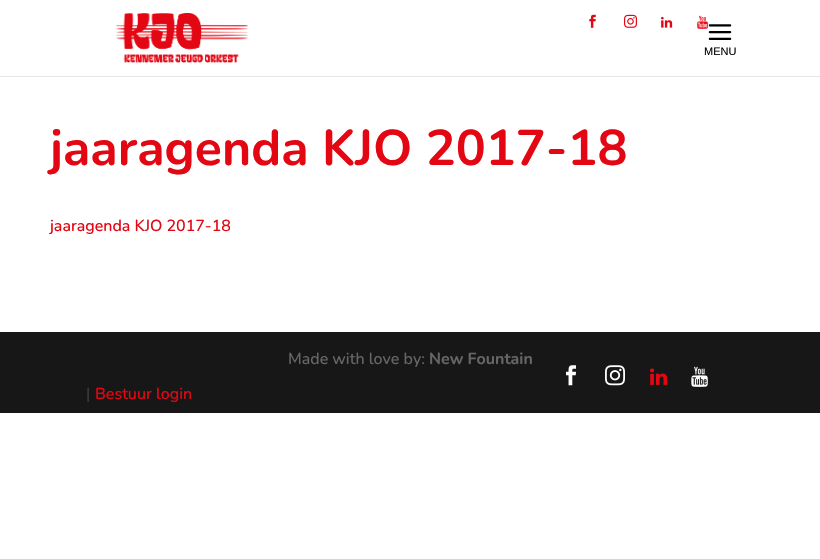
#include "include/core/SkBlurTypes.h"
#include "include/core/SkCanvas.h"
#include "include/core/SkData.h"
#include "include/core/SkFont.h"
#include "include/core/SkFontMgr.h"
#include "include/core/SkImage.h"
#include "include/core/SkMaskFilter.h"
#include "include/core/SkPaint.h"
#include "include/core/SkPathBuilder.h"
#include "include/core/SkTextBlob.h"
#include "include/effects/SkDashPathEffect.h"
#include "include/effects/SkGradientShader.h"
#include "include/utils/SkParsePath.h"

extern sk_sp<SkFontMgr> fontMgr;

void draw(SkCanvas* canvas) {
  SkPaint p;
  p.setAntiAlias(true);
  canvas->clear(SK_ColorWHITE);
  p.setColor(SkColorSetRGB(230, 230, 230));
  canvas->drawRect(SkRect::MakeLTRB(0, 76, 820, 77), p);
  canvas->drawImageRect(SkImages::DeferredFromEncodedData(SkData::MakeFromFileName("images/1.png")), SkRect::MakeLTRB(116, 13, 248, 63), SkSamplingOptions());
  canvas->drawImageRect(SkImages::DeferredFromEncodedData(SkData::MakeFromFileName("images/2.png")), SkRect::MakeLTRB(589, 14, 596, 28), SkSamplingOptions());
  canvas->drawImageRect(SkImages::DeferredFromEncodedData(SkData::MakeFromFileName("images/3.png")), SkRect::MakeLTRB(624, 14, 637, 28), SkSamplingOptions());
  canvas->drawImageRect(SkImages::DeferredFromEncodedData(SkData::MakeFromFileName("images/4.png")), SkRect::MakeLTRB(661, 16, 673, 28), SkSamplingOptions());
  canvas->drawImageRect(SkImages::DeferredFromEncodedData(SkData::MakeFromFileName("images/5.png")), SkRect::MakeLTRB(697, 15, 708, 29), SkSamplingOptions());
  canvas->drawImageRect(SkImages::DeferredFromEncodedData(SkData::MakeFromFileName("images/6.png")), SkRect::MakeLTRB(708, 24, 732, 40), SkSamplingOptions());
  p.setColor(SkColorSetRGB(23, 23, 23));
  canvas->drawRect(SkRect::MakeLTRB(0, 332, 820, 413), p);
  canvas->drawImageRect(SkImages::DeferredFromEncodedData(SkData::MakeFromFileName("images/7.png")), SkRect::MakeLTRB(566, 365, 576, 386), SkSamplingOptions());
  canvas->drawImageRect(SkImages::DeferredFromEncodedData(SkData::MakeFromFileName("images/8.png")), SkRect::MakeLTRB(605, 365, 625, 386), SkSamplingOptions());
  canvas->drawImageRect(SkImages::DeferredFromEncodedData(SkData::MakeFromFileName("images/9.png")), SkRect::MakeLTRB(650, 368, 668, 385), SkSamplingOptions());
  canvas->drawImageRect(SkImages::DeferredFromEncodedData(SkData::MakeFromFileName("images/10.png")), SkRect::MakeLTRB(691, 366, 708, 387), SkSamplingOptions());
  SkFont font1(fontMgr->matchFamilyStyle("Liberation Sans", SkFontStyle::Normal()), 11);
  font1.setSubpixel(true);
  p.setColor(SK_ColorBLACK);
  canvas->drawString("MENU", 704, 55, font1, p);
  SkFont font2(fontMgr->matchFamilyStyle("Nunito", SkFontStyle::Bold()), 50);
  font2.setSubpixel(true);
  p.setColor(SkColorSetRGB(227, 6, 19));
  canvas->drawString("jaaragenda KJO 2017-18", 50, 165, font2, p);
  SkFont font3(fontMgr->matchFamilyStyle("Nunito", SkFontStyle(500, SkFontStyle::kNormal_Width, SkFontStyle::kUpright_Slant)), 16);
  font3.setSubpixel(true);
  canvas->drawString("jaaragenda KJO 2017-18", 50, 231, font3, p);
  p.setColor(SkColorSetRGB(102, 102, 102));
  canvas->drawString("Made with love by:", 288, 364, font3, p);
  SkFont font4(fontMgr->matchFamilyStyle("Nunito", SkFontStyle::Bold()), 16);
  font4.setSubpixel(true);
  canvas->drawString("New Fountain", 429, 364, font4, p);
  p.setColor(SkColorSetRGB(58, 58, 58));
  canvas->drawString("|", 86, 399, font3, p);
  p.setColor(SkColorSetRGB(227, 6, 19));
  canvas->drawString("Bestuur login", 95, 399, font3, p);
}
